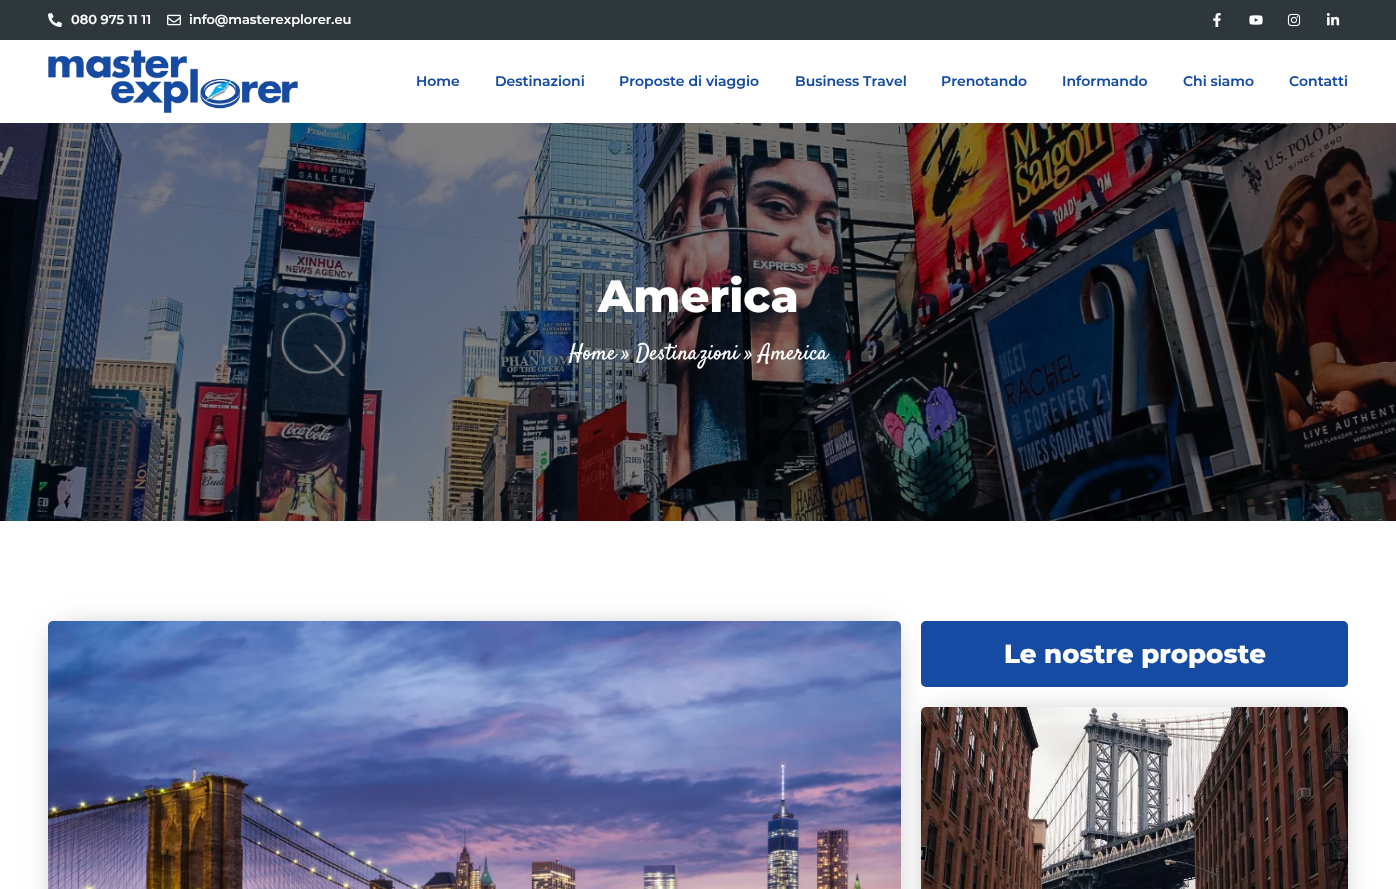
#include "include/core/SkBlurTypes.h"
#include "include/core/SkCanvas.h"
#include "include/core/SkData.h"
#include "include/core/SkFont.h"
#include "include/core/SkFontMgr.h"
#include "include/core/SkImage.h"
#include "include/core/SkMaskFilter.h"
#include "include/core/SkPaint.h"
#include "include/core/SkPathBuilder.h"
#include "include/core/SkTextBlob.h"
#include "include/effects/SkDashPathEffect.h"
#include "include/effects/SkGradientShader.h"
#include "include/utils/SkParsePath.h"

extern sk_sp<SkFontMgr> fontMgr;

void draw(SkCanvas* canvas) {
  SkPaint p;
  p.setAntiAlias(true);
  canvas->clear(SK_ColorWHITE);
  p.setColor(SkColorSetRGB(45, 55, 60));
  canvas->drawRect(SkRect::MakeLTRB(0, 0, 1396, 40), p);
  canvas->drawImageRect(SkImages::DeferredFromEncodedData(SkData::MakeFromFileName("images/1.png")), SkRect::MakeLTRB(48, 13, 62, 27), SkSamplingOptions());
  canvas->drawImageRect(SkImages::DeferredFromEncodedData(SkData::MakeFromFileName("images/2.png")), SkRect::MakeLTRB(167, 14, 181, 26), SkSamplingOptions());
  canvas->drawImageRect(SkImages::DeferredFromEncodedData(SkData::MakeFromFileName("images/3.png")), SkRect::MakeLTRB(1213, 13, 1221, 27), SkSamplingOptions());
  canvas->drawImageRect(SkImages::DeferredFromEncodedData(SkData::MakeFromFileName("images/4.png")), SkRect::MakeLTRB(1249, 15, 1263, 25), SkSamplingOptions());
  canvas->drawImageRect(SkImages::DeferredFromEncodedData(SkData::MakeFromFileName("images/5.png")), SkRect::MakeLTRB(1287, 13, 1301, 27), SkSamplingOptions());
  canvas->drawImageRect(SkImages::DeferredFromEncodedData(SkData::MakeFromFileName("images/6.png")), SkRect::MakeLTRB(1326, 13, 1340, 26), SkSamplingOptions());
  canvas->drawImageRect(SkImages::DeferredFromEncodedData(SkData::MakeFromFileName("images/7.png")), SkRect::MakeLTRB(48, 50, 298, 113), SkSamplingOptions());
  canvas->drawImageRect(SkImages::DeferredFromEncodedData(SkData::MakeFromFileName("images/8.png")), SkRect::MakeLTRB(0, 123, 1396, 521), SkSamplingOptions());
  p.setColor(SkColorSetARGB(128, 0, 0, 0));
  p.setMaskFilter(SkMaskFilter::MakeBlur(kNormal_SkBlurStyle, 15));
  canvas->drawRect(SkRect::MakeLTRB(63, 636, 886, 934), p);
  p.setMaskFilter(nullptr);
  canvas->drawImageRect(SkImages::DeferredFromEncodedData(SkData::MakeFromFileName("images/9.png")), SkRect::MakeLTRB(48, 621, 901, 889), SkSamplingOptions());
  p.setColor(SkColorSetRGB(21, 75, 163));
  canvas->drawRoundRect(SkRect::MakeLTRB(921, 621, 1348, 687), 5, 5, p);
  p.setColor(SkColorSetARGB(128, 0, 0, 0));
  p.setMaskFilter(SkMaskFilter::MakeBlur(kNormal_SkBlurStyle, 15));
  canvas->drawRect(SkRect::MakeLTRB(936, 722, 1333, 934), p);
  p.setMaskFilter(nullptr);
  canvas->drawImageRect(SkImages::DeferredFromEncodedData(SkData::MakeFromFileName("images/10.png")), SkRect::MakeLTRB(921, 707, 1348, 889), SkSamplingOptions());
  SkFont font1(fontMgr->matchFamilyStyle("Montserrat", SkFontStyle(600, SkFontStyle::kNormal_Width, SkFontStyle::kUpright_Slant)), 13);
  font1.setSubpixel(true);
  p.setColor(SK_ColorWHITE);
  canvas->drawString("080 975 11 11", 71, 24, font1, p);
  canvas->drawString("info@masterexplorer.eu", 189, 24, font1, p);
  SkFont font2(fontMgr->matchFamilyStyle("Montserrat", SkFontStyle(600, SkFontStyle::kNormal_Width, SkFontStyle::kUpright_Slant)), 14);
  font2.setSubpixel(true);
  p.setColor(SkColorSetRGB(21, 75, 163));
  canvas->drawString("Home", 416, 86, font2, p);
  canvas->drawString("Destinazioni", 495, 86, font2, p);
  canvas->drawString("Proposte di viaggio", 619, 86, font2, p);
  canvas->drawString("Business Travel", 795, 86, font2, p);
  canvas->drawString("Prenotando", 941, 86, font2, p);
  canvas->drawString("Informando", 1062, 86, font2, p);
  canvas->drawString("Chi siamo", 1183, 86, font2, p);
  canvas->drawString("Contatti", 1289, 86, font2, p);
  SkFont font3(fontMgr->matchFamilyStyle("Montserrat", SkFontStyle(800, SkFontStyle::kNormal_Width, SkFontStyle::kUpright_Slant)), 45);
  font3.setSubpixel(true);
  p.setColor(SK_ColorWHITE);
  canvas->drawString("America", 598, 312, font3, p);
  SkFont font4(fontMgr->matchFamilyStyle("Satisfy", SkFontStyle::Normal()), 22);
  font4.setSubpixel(true);
  canvas->drawString("Home » Destinazioni » America", 569, 359, font4, p);
  SkFont font5(fontMgr->matchFamilyStyle("Montserrat", SkFontStyle(800, SkFontStyle::kNormal_Width, SkFontStyle::kUpright_Slant)), 26);
  font5.setSubpixel(true);
  canvas->drawString("Le nostre proposte", 1004, 663, font5, p);
}
